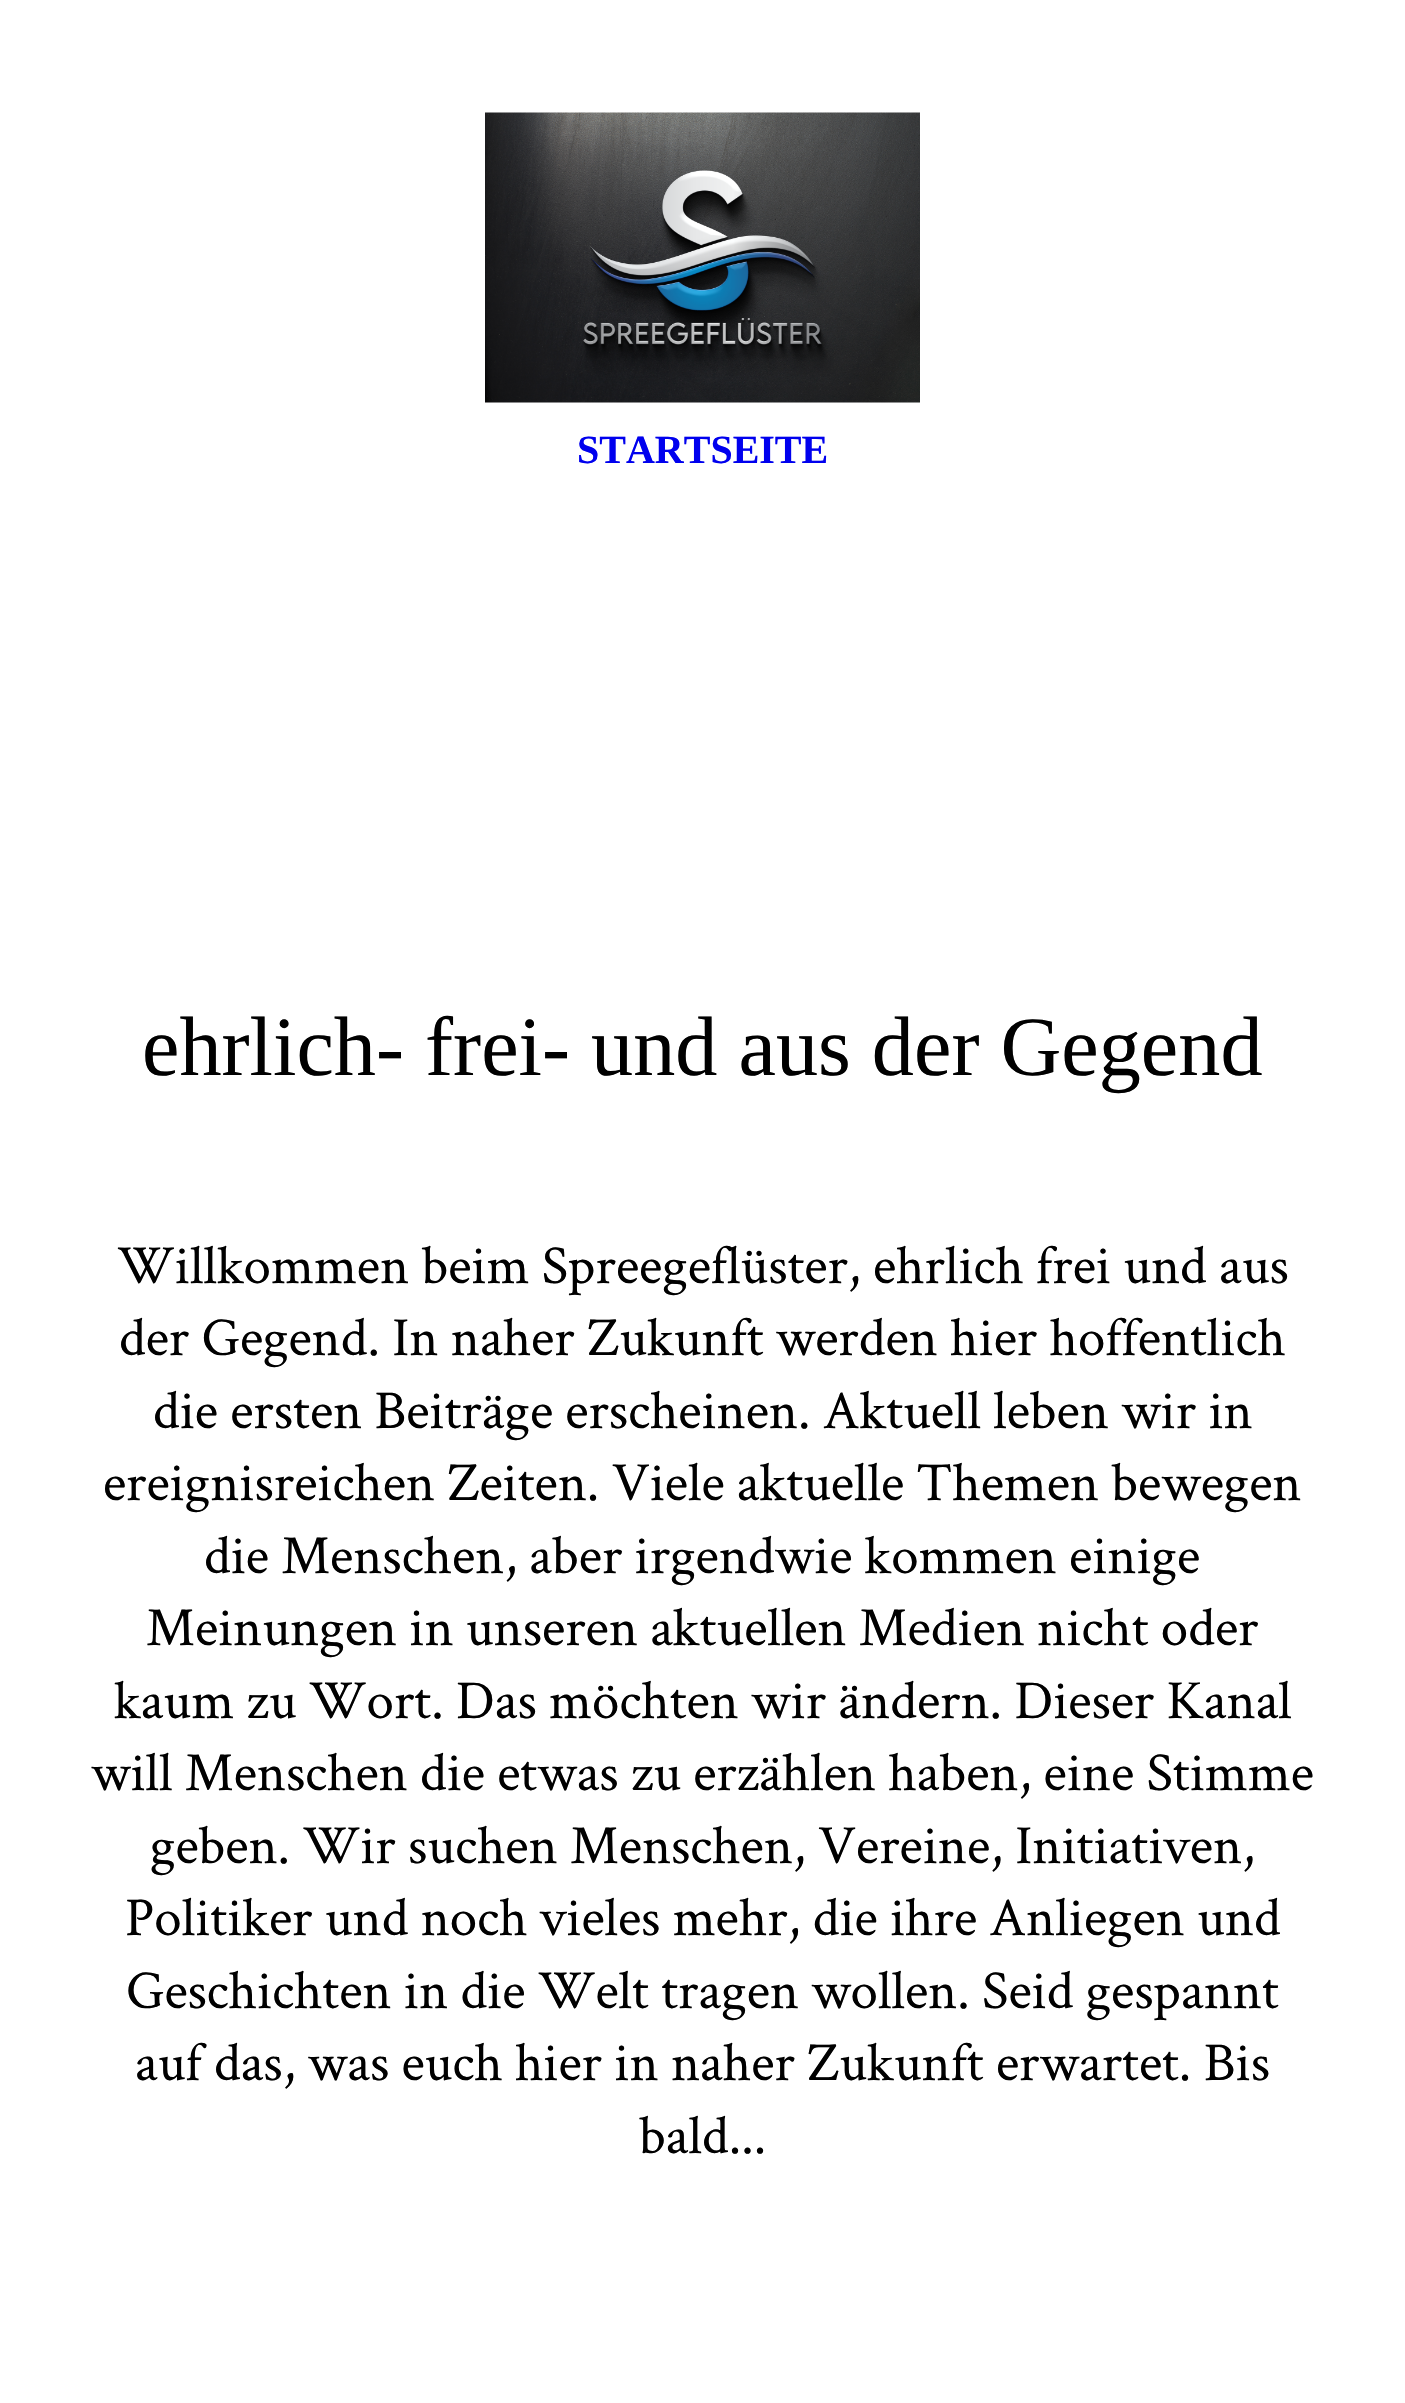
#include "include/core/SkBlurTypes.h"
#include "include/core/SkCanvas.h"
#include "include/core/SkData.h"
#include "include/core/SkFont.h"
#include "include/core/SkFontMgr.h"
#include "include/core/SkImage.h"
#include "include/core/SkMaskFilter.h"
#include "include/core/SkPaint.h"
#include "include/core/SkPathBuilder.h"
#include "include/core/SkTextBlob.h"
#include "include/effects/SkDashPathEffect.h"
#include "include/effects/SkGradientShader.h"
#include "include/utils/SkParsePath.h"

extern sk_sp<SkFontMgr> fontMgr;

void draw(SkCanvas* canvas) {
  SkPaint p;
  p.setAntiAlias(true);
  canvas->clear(SK_ColorWHITE);
  canvas->drawImageRect(SkImages::DeferredFromEncodedData(SkData::MakeFromFileName("images/1.png")), SkRect::MakeLTRB(485, 112, 920, 403), SkSamplingOptions());
  SkFont font1(fontMgr->matchFamilyStyle("Liberation Serif", SkFontStyle::Bold()), 40);
  font1.setSubpixel(true);
  p.setColor(SkColorSetRGB(0, 0, 238));
  canvas->drawString("STARTSEITE", 577, 463, font1, p);
  SkFont font2(fontMgr->matchFamilyStyle("Liberation Serif", SkFontStyle::Normal()), 84.25f);
  font2.setSubpixel(true);
  p.setColor(SK_ColorBLACK);
  canvas->drawString("ehrlich- frei- und aus der Gegend", 142, 1075, font2, p);
  SkFont font3(fontMgr->matchFamilyStyle("Crimson Text", SkFontStyle::Normal()), 55);
  font3.setSubpixel(true);
  canvas->drawString("Willkommen beim Spreegeflüster, ehrlich frei und aus", 117, 1283, font3, p);
  canvas->drawString("der Gegend. In naher Zukunft werden hier hoffentlich", 119, 1355, font3, p);
  canvas->drawString("die ersten Beiträge erscheinen. Aktuell leben wir in", 153, 1428, font3, p);
  canvas->drawString("ereignisreichen Zeiten. Viele aktuelle Themen bewegen", 103, 1500, font3, p);
  canvas->drawString("die Menschen, aber irgendwie kommen einige", 204, 1573, font3, p);
  canvas->drawString("Meinungen in unseren aktuellen Medien nicht oder", 146, 1645, font3, p);
  canvas->drawString("kaum zu Wort. Das möchten wir ändern. Dieser Kanal", 114, 1718, font3, p);
  canvas->drawString("will Menschen die etwas zu erzählen haben, eine Stimme", 91, 1790, font3, p);
  canvas->drawString("geben. Wir suchen Menschen, Vereine, Initiativen,", 150, 1863, font3, p);
  canvas->drawString("Politiker und noch vieles mehr, die ihre Anliegen und", 125, 1935, font3, p);
  canvas->drawString("Geschichten in die Welt tragen wollen. Seid gespannt", 126, 2008, font3, p);
  canvas->drawString("auf das, was euch hier in naher Zukunft erwartet. Bis", 135, 2080, font3, p);
  canvas->drawString("bald...", 639, 2153, font3, p);
}
